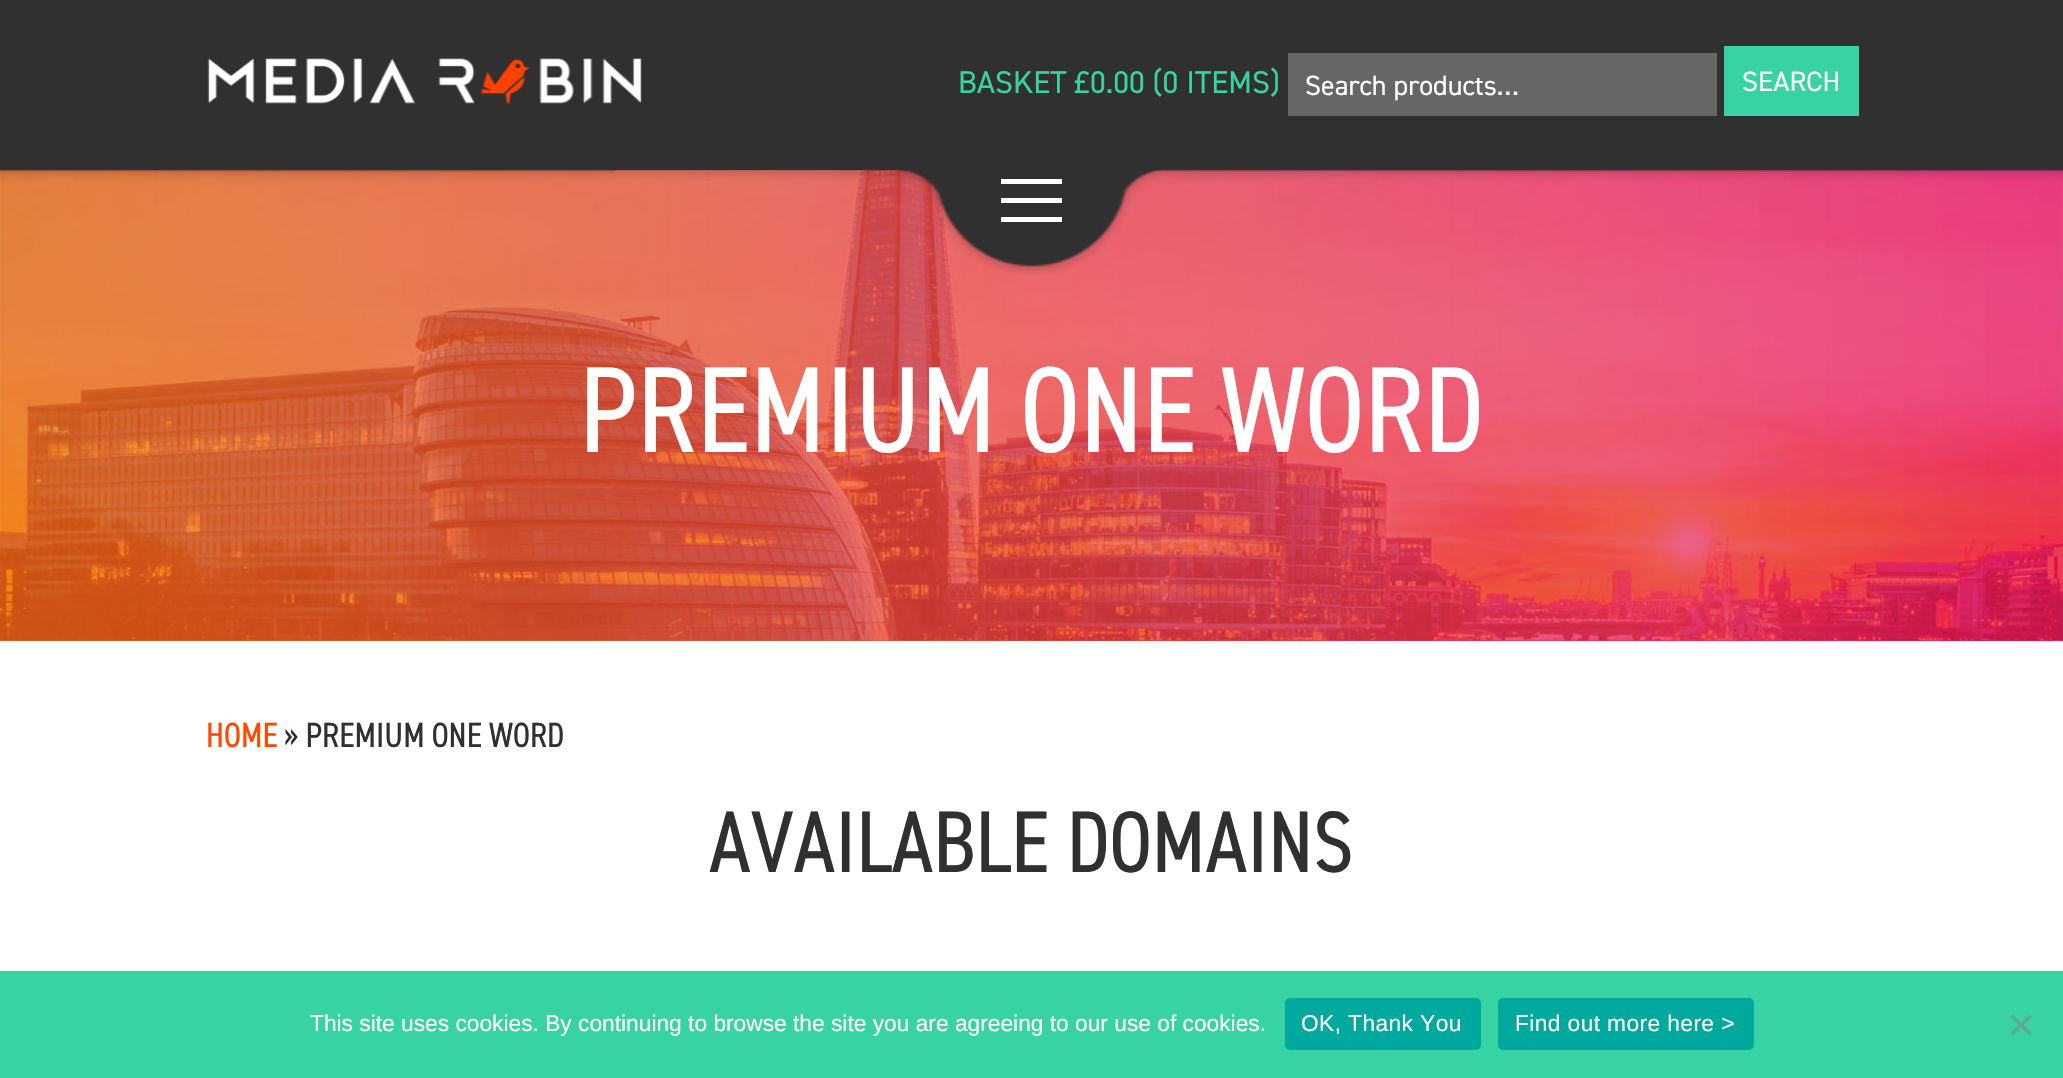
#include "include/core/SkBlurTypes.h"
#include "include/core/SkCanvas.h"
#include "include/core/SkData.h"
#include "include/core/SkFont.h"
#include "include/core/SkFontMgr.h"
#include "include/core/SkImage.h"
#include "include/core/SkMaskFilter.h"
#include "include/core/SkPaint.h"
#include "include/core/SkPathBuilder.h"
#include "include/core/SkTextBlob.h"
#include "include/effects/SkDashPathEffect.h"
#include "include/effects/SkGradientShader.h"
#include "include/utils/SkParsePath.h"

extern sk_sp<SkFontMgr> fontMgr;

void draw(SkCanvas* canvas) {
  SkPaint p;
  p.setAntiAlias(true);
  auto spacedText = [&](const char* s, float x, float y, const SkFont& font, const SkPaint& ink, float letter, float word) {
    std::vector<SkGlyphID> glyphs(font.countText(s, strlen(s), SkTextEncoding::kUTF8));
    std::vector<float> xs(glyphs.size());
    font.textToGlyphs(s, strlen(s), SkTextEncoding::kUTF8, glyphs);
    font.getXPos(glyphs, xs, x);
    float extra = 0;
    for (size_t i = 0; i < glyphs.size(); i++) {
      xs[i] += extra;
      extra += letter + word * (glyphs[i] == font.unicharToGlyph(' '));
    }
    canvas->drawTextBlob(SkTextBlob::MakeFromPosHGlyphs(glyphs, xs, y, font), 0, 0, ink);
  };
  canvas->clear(SK_ColorWHITE);
  p.setColor(SkColorSetRGB(48, 48, 49));
  canvas->drawRect(SkRect::MakeLTRB(0, 0, 2063, 170), p);
  canvas->drawImageRect(SkImages::DeferredFromEncodedData(SkData::MakeFromFileName("images/1.png")), SkRect::MakeLTRB(207, 58, 642, 104), SkSamplingOptions());
  p.setColor(SkColorSetRGB(102, 102, 102));
  canvas->drawRect(SkRect::MakeLTRB(1288, 53, 1717, 116), p);
  p.setColor(SkColorSetRGB(56, 211, 162));
  canvas->drawRect(SkRect::MakeLTRB(1724, 46, 1859, 116), p);
  {
    const SkColor colors[] = {SkColorSetRGB(238, 115, 28), SkColorSetRGB(231, 32, 99)};
    const float stops[] = {0, 1};
    const SkPoint ends[] = {{0, 404}, {2063, 404}};
    p.setShader(SkGradientShader::MakeLinear(ends, colors, stops, 2, SkTileMode::kClamp));
    p.setAlpha(255);
  }
  canvas->drawRect(SkRect::MakeLTRB(0, 640, 2063, 641), p);
  canvas->drawImageRect(SkImages::DeferredFromEncodedData(SkData::MakeFromFileName("images/3.png")), SkRect::MakeLTRB(0, 170, 2063, 641), SkSamplingOptions());
  canvas->drawImageRect(SkImages::DeferredFromEncodedData(SkData::MakeFromFileName("images/2.png")), SkRect::MakeLTRB(0, 170, 2063, 275), SkSamplingOptions());
  p.setShader(nullptr);
  p.setColor(SK_ColorWHITE);
  canvas->drawRect(SkRect::MakeLTRB(1001, 179, 1062, 184), p);
  canvas->drawRect(SkRect::MakeLTRB(1001, 198, 1062, 203), p);
  canvas->drawRect(SkRect::MakeLTRB(1001, 217, 1062, 222), p);
  p.setColor(SkColorSetRGB(56, 211, 162));
  canvas->drawRect(SkRect::MakeLTRB(0, 971, 2063, 1078), p);
  p.setColor(SkColorSetRGB(0, 169, 157));
  canvas->drawRoundRect(SkRect::MakeLTRB(1285, 998, 1481, 1050), 5, 5, p);
  canvas->drawRoundRect(SkRect::MakeLTRB(1498, 998, 1754, 1050), 5, 5, p);
  p.setColor(SkColorSetRGB(92, 170, 145));
  canvas->drawPath(SkPathBuilder().moveTo(2029.5f, 1014.5f).lineTo(2032, 1017).lineTo(2013, 1035.5f).lineTo(2010.5f, 1033).close().detach(), p);
  canvas->drawPath(SkPathBuilder().moveTo(2010.5f, 1017).lineTo(2013, 1014.5f).lineTo(2032, 1033).lineTo(2029.5f, 1035.5f).close().detach(), p);
  SkFont font1(fontMgr->matchFamilyStyle("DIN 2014", SkFontStyle::Normal()), 31.5f);
  font1.setSubpixel(true);
  p.setColor(SkColorSetRGB(56, 211, 162));
  canvas->drawString("BASKET £0.00 (0 ITEMS)", 958, 93, font1, p);
  SkFont font2(fontMgr->matchFamilyStyle("DIN 2014", SkFontStyle::Normal()), 28);
  font2.setSubpixel(true);
  p.setColor(SK_ColorWHITE);
  canvas->drawString("Search products…", 1305, 95, font2, p);
  canvas->drawString("SEARCH", 1742, 91, font2, p);
  SkFont font3(fontMgr->matchFamilyStyle("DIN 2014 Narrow", SkFontStyle::Normal()), 122.5f);
  font3.setSubpixel(true);
  canvas->drawString("PREMIUM ONE WORD", 579, 452, font3, p);
  SkFont font4(fontMgr->matchFamilyStyle("DIN 2014 Narrow", SkFontStyle::Normal()), 35);
  font4.setSubpixel(true);
  p.setColor(SkColorSetRGB(255, 72, 0));
  canvas->drawString("HOME", 206, 747, font4, p);
  p.setColor(SkColorSetRGB(48, 48, 49));
  canvas->drawString("» PREMIUM ONE WORD", 284, 747, font4, p);
  SkFont font5(fontMgr->matchFamilyStyle("DIN 2014 Narrow", SkFontStyle::Normal()), 87.5f);
  font5.setSubpixel(true);
  canvas->drawString("AVAILABLE DOMAINS", 709, 872, font5, p);
  SkFont font6(fontMgr->matchFamilyStyle("Liberation Sans", SkFontStyle::Normal()), 22.75f);
  font6.setSubpixel(true);
  p.setColor(SK_ColorWHITE);
  canvas->drawString("This site uses cookies. By continuing to browse the site you are agreeing to our use of cookies.", 310, 1031, font6, p);
  spacedText("OK, Thank You", 1301, 1031, font6, p, 0.4f, 0);
  spacedText("Find out more here >", 1515, 1031, font6, p, 0.4f, 0);
}
